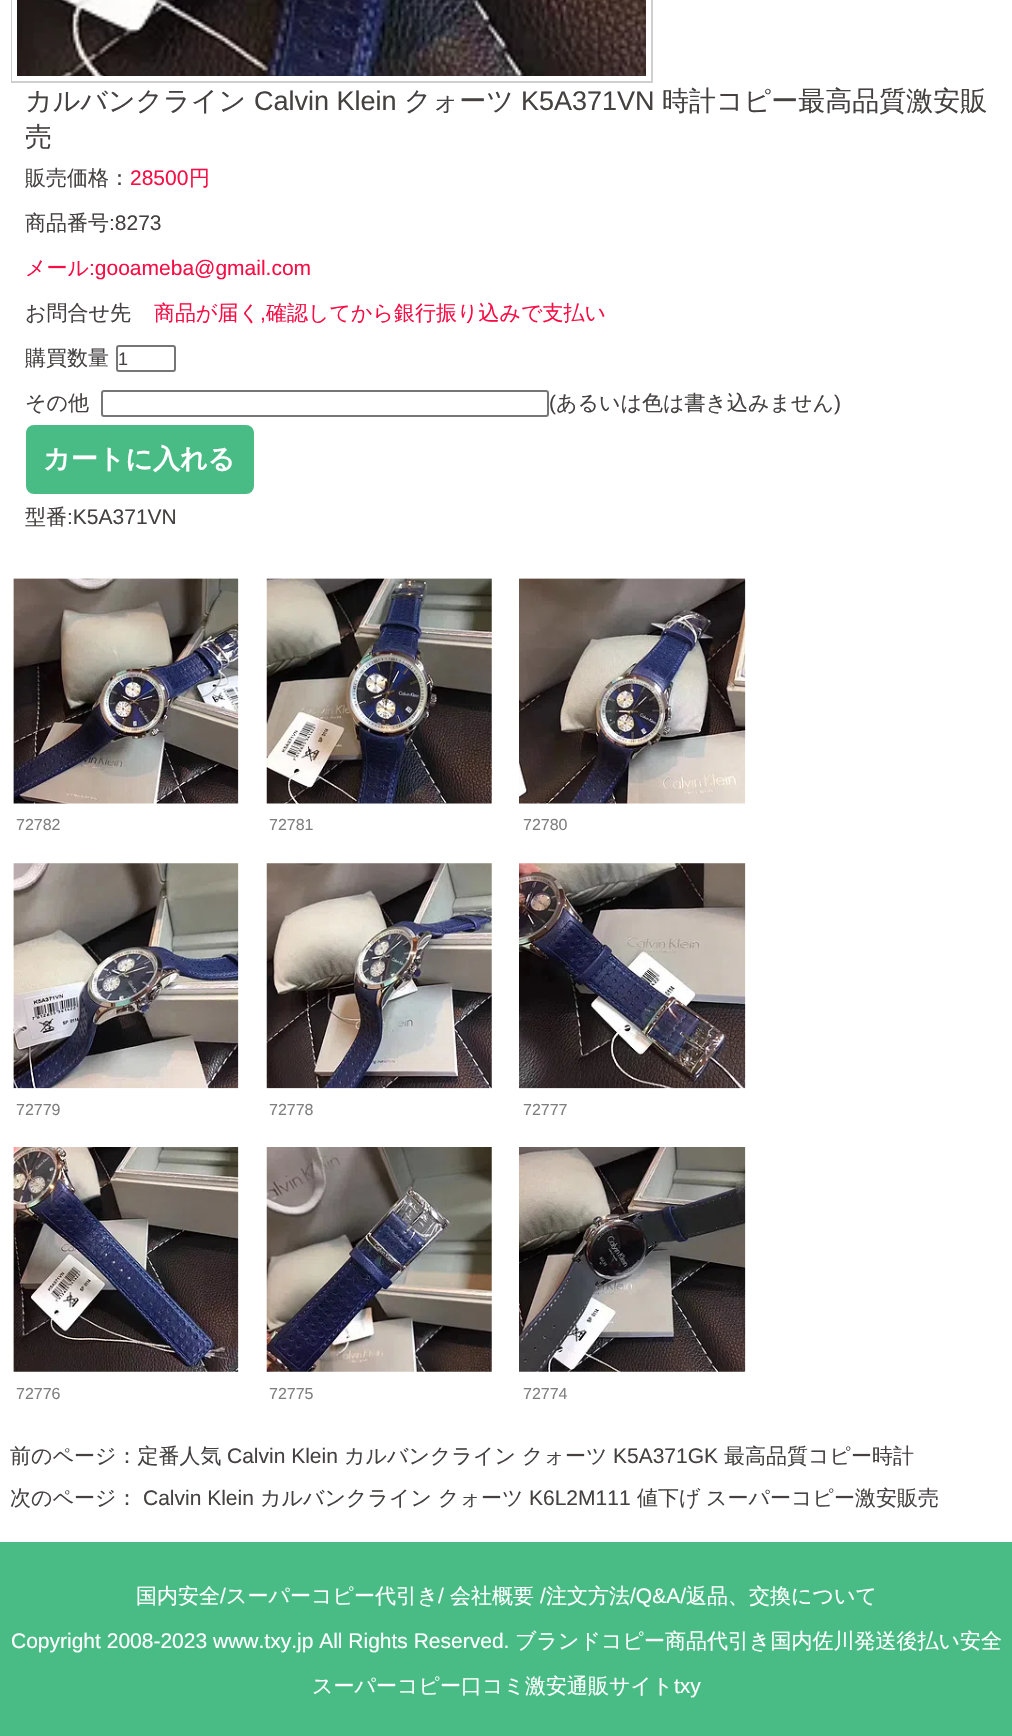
#include "include/core/SkBlurTypes.h"
#include "include/core/SkCanvas.h"
#include "include/core/SkData.h"
#include "include/core/SkFont.h"
#include "include/core/SkFontMgr.h"
#include "include/core/SkImage.h"
#include "include/core/SkMaskFilter.h"
#include "include/core/SkPaint.h"
#include "include/core/SkPathBuilder.h"
#include "include/core/SkTextBlob.h"
#include "include/effects/SkDashPathEffect.h"
#include "include/effects/SkGradientShader.h"
#include "include/utils/SkParsePath.h"

extern sk_sp<SkFontMgr> fontMgr;

void draw(SkCanvas* canvas) {
  SkPaint p;
  p.setAntiAlias(true);
  canvas->clear(SK_ColorWHITE);
  p.setStyle(SkPaint::kStroke_Style);
  p.setStrokeWidth(2);
  p.setColor(SkColorSetRGB(207, 207, 207));
  canvas->drawRect(SkRect::MakeLTRB(12, -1, 652, 82), p);
  canvas->drawImageRect(SkImages::DeferredFromEncodedData(SkData::MakeFromFileName("images/1.png")), SkRect::MakeLTRB(17, 0, 646, 76), SkSamplingOptions());
  p.setStrokeWidth(5);
  p.setColor(SK_ColorWHITE);
  canvas->drawRect(SkRect::MakeLTRB(14.5f, -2.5f, 648.5f, 78.5f), p);
  p.setStrokeWidth(2);
  p.setColor(SkColorSetRGB(118, 118, 118));
  canvas->drawRoundRect(SkRect::MakeLTRB(117, 346, 175, 371), 2, 2, p);
  canvas->drawRoundRect(SkRect::MakeLTRB(102, 391, 548, 416), 2, 2, p);
  p.setStyle(SkPaint::kFill_Style);
  p.setColor(SkColorSetRGB(73, 188, 133));
  canvas->drawRoundRect(SkRect::MakeLTRB(26, 425, 254, 494), 8, 8, p);
  canvas->drawImageRect(SkImages::DeferredFromEncodedData(SkData::MakeFromFileName("images/2.png")), SkRect::MakeLTRB(13, 578, 239, 804), SkSamplingOptions());
  canvas->drawImageRect(SkImages::DeferredFromEncodedData(SkData::MakeFromFileName("images/3.png")), SkRect::MakeLTRB(266, 578, 492, 804), SkSamplingOptions());
  canvas->drawImageRect(SkImages::DeferredFromEncodedData(SkData::MakeFromFileName("images/4.png")), SkRect::MakeLTRB(519, 578, 746, 804), SkSamplingOptions());
  canvas->drawImageRect(SkImages::DeferredFromEncodedData(SkData::MakeFromFileName("images/5.png")), SkRect::MakeLTRB(13, 863, 239, 1089), SkSamplingOptions());
  canvas->drawImageRect(SkImages::DeferredFromEncodedData(SkData::MakeFromFileName("images/6.png")), SkRect::MakeLTRB(266, 863, 492, 1089), SkSamplingOptions());
  canvas->drawImageRect(SkImages::DeferredFromEncodedData(SkData::MakeFromFileName("images/7.png")), SkRect::MakeLTRB(519, 863, 746, 1089), SkSamplingOptions());
  canvas->drawImageRect(SkImages::DeferredFromEncodedData(SkData::MakeFromFileName("images/8.png")), SkRect::MakeLTRB(13, 1147, 239, 1372), SkSamplingOptions());
  canvas->drawImageRect(SkImages::DeferredFromEncodedData(SkData::MakeFromFileName("images/9.png")), SkRect::MakeLTRB(266, 1147, 492, 1372), SkSamplingOptions());
  canvas->drawImageRect(SkImages::DeferredFromEncodedData(SkData::MakeFromFileName("images/10.png")), SkRect::MakeLTRB(519, 1147, 746, 1372), SkSamplingOptions());
  canvas->drawRect(SkRect::MakeLTRB(0, 1542, 1012, 1736), p);
  SkFont font1(fontMgr->matchFamilyStyle("WenQuanYi Zen Hei", SkFontStyle(500, SkFontStyle::kNormal_Width, SkFontStyle::kUpright_Slant)), 27);
  font1.setSubpixel(true);
  p.setColor(SkColorSetRGB(69, 65, 65));
  canvas->drawString("カルバンクライン", 25, 110, font1, p);
  SkFont font2(fontMgr->matchFamilyStyle("Liberation Sans", SkFontStyle::Normal()), 27);
  font2.setSubpixel(true);
  canvas->drawString("Calvin Klein", 254, 110, font2, p);
  canvas->drawString("クォーツ", 404, 110, font1, p);
  canvas->drawString("K5A371VN", 521, 110, font2, p);
  canvas->drawString("時計コピー最高品質激安販", 662, 110, font1, p);
  canvas->drawString("売", 25, 146, font1, p);
  SkFont font3(fontMgr->matchFamilyStyle("WenQuanYi Zen Hei", SkFontStyle(500, SkFontStyle::kNormal_Width, SkFontStyle::kUpright_Slant)), 21);
  font3.setSubpixel(true);
  canvas->drawString("販売価格：", 25, 185, font3, p);
  SkFont font4(fontMgr->matchFamilyStyle("Liberation Sans", SkFontStyle::Normal()), 21);
  font4.setSubpixel(true);
  p.setColor(SkColorSetRGB(246, 15, 70));
  canvas->drawString("28500", 130, 185, font4, p);
  canvas->drawString("円", 189, 185, font3, p);
  p.setColor(SkColorSetRGB(69, 65, 65));
  canvas->drawString("商品番号", 25, 230, font3, p);
  canvas->drawString(":8273", 109, 230, font4, p);
  p.setColor(SkColorSetRGB(246, 15, 70));
  canvas->drawString("メール", 25, 275, font3, p);
  canvas->drawString(":gooameba@gmail.com", 89, 275, font4, p);
  p.setColor(SkColorSetRGB(69, 65, 65));
  canvas->drawString("お問合せ先", 25, 320, font3, p);
  p.setColor(SkColorSetRGB(246, 15, 70));
  canvas->drawString("商品が届く", 154, 320, font3, p);
  canvas->drawString(",", 260, 320, font4, p);
  canvas->drawString("確認してから銀行振り込みで支払い", 266, 320, font3, p);
  p.setColor(SkColorSetRGB(69, 65, 65));
  canvas->drawString("購買数量", 25, 365, font3, p);
  SkFont font5(fontMgr->matchFamilyStyle("Liberation Sans", SkFontStyle::Normal()), 18);
  font5.setSubpixel(true);
  canvas->drawString("1", 118, 365, font5, p);
  canvas->drawString("その他", 25, 410, font3, p);
  canvas->drawString("(", 549, 410, font4, p);
  canvas->drawString("あるいは色は書き込みません", 556, 410, font3, p);
  canvas->drawString(")", 834, 410, font4, p);
  SkFont font6(fontMgr->matchFamilyStyle("WenQuanYi Zen Hei", SkFontStyle::Bold()), 27);
  font6.setSubpixel(true);
  p.setColor(SK_ColorWHITE);
  canvas->drawString("カートに入れる", 43, 468, font6, p);
  p.setColor(SkColorSetRGB(69, 65, 65));
  canvas->drawString("型番", 25, 524, font3, p);
  canvas->drawString(":K5A371VN", 67, 524, font4, p);
  SkFont font7(fontMgr->matchFamilyStyle("Liberation Sans", SkFontStyle::Normal()), 16);
  font7.setSubpixel(true);
  p.setColor(SkColorSetRGB(127, 127, 127));
  canvas->drawString("72782", 16, 830, font7, p);
  canvas->drawString("72781", 269, 830, font7, p);
  canvas->drawString("72780", 523, 830, font7, p);
  canvas->drawString("72779", 16, 1115, font7, p);
  canvas->drawString("72778", 269, 1115, font7, p);
  canvas->drawString("72777", 523, 1115, font7, p);
  canvas->drawString("72776", 16, 1399, font7, p);
  canvas->drawString("72775", 269, 1399, font7, p);
  canvas->drawString("72774", 523, 1399, font7, p);
  p.setColor(SkColorSetRGB(69, 65, 65));
  canvas->drawString("前のページ：定番人気", 10, 1463, font3, p);
  canvas->drawString("Calvin Klein", 227, 1463, font4, p);
  canvas->drawString("カルバンクライン", 344, 1463, font3, p);
  canvas->drawString("クォーツ", 522, 1463, font3, p);
  canvas->drawString("K5A371GK", 613, 1463, font4, p);
  canvas->drawString("最高品質コピー時計", 724, 1463, font3, p);
  canvas->drawString("次のページ：", 10, 1505, font3, p);
  canvas->drawString("Calvin Klein", 143, 1505, font4, p);
  canvas->drawString("カルバンクライン", 260, 1505, font3, p);
  canvas->drawString("クォーツ", 438, 1505, font3, p);
  canvas->drawString("K6L2M111", 529, 1505, font4, p);
  canvas->drawString("値下げ", 637, 1505, font3, p);
  canvas->drawString("スーパーコピー激安販売", 706, 1505, font3, p);
  p.setColor(SK_ColorWHITE);
  canvas->drawString("国内安全", 136, 1603, font3, p);
  canvas->drawString("/", 220, 1603, font4, p);
  canvas->drawString("スーパーコピー代引き", 226, 1603, font3, p);
  canvas->drawString("/", 438, 1603, font4, p);
  canvas->drawString("会社概要", 450, 1603, font3, p);
  canvas->drawString("/", 540, 1603, font4, p);
  canvas->drawString("注文方法", 546, 1603, font3, p);
  canvas->drawString("/Q&A/", 630, 1603, font4, p);
  canvas->drawString("返品、交換について", 686, 1603, font3, p);
  canvas->drawString("Copyright 2008-2023 www.txy.jp All Rights Reserved.", 11, 1648, font4, p);
  canvas->drawString("ブランドコピー商品代引き国内佐川発送後払い安全", 515, 1648, font3, p);
  canvas->drawString("スーパーコピー口コミ激安通販サイト", 312, 1693, font3, p);
  canvas->drawString("txy", 674, 1693, font4, p);
}
